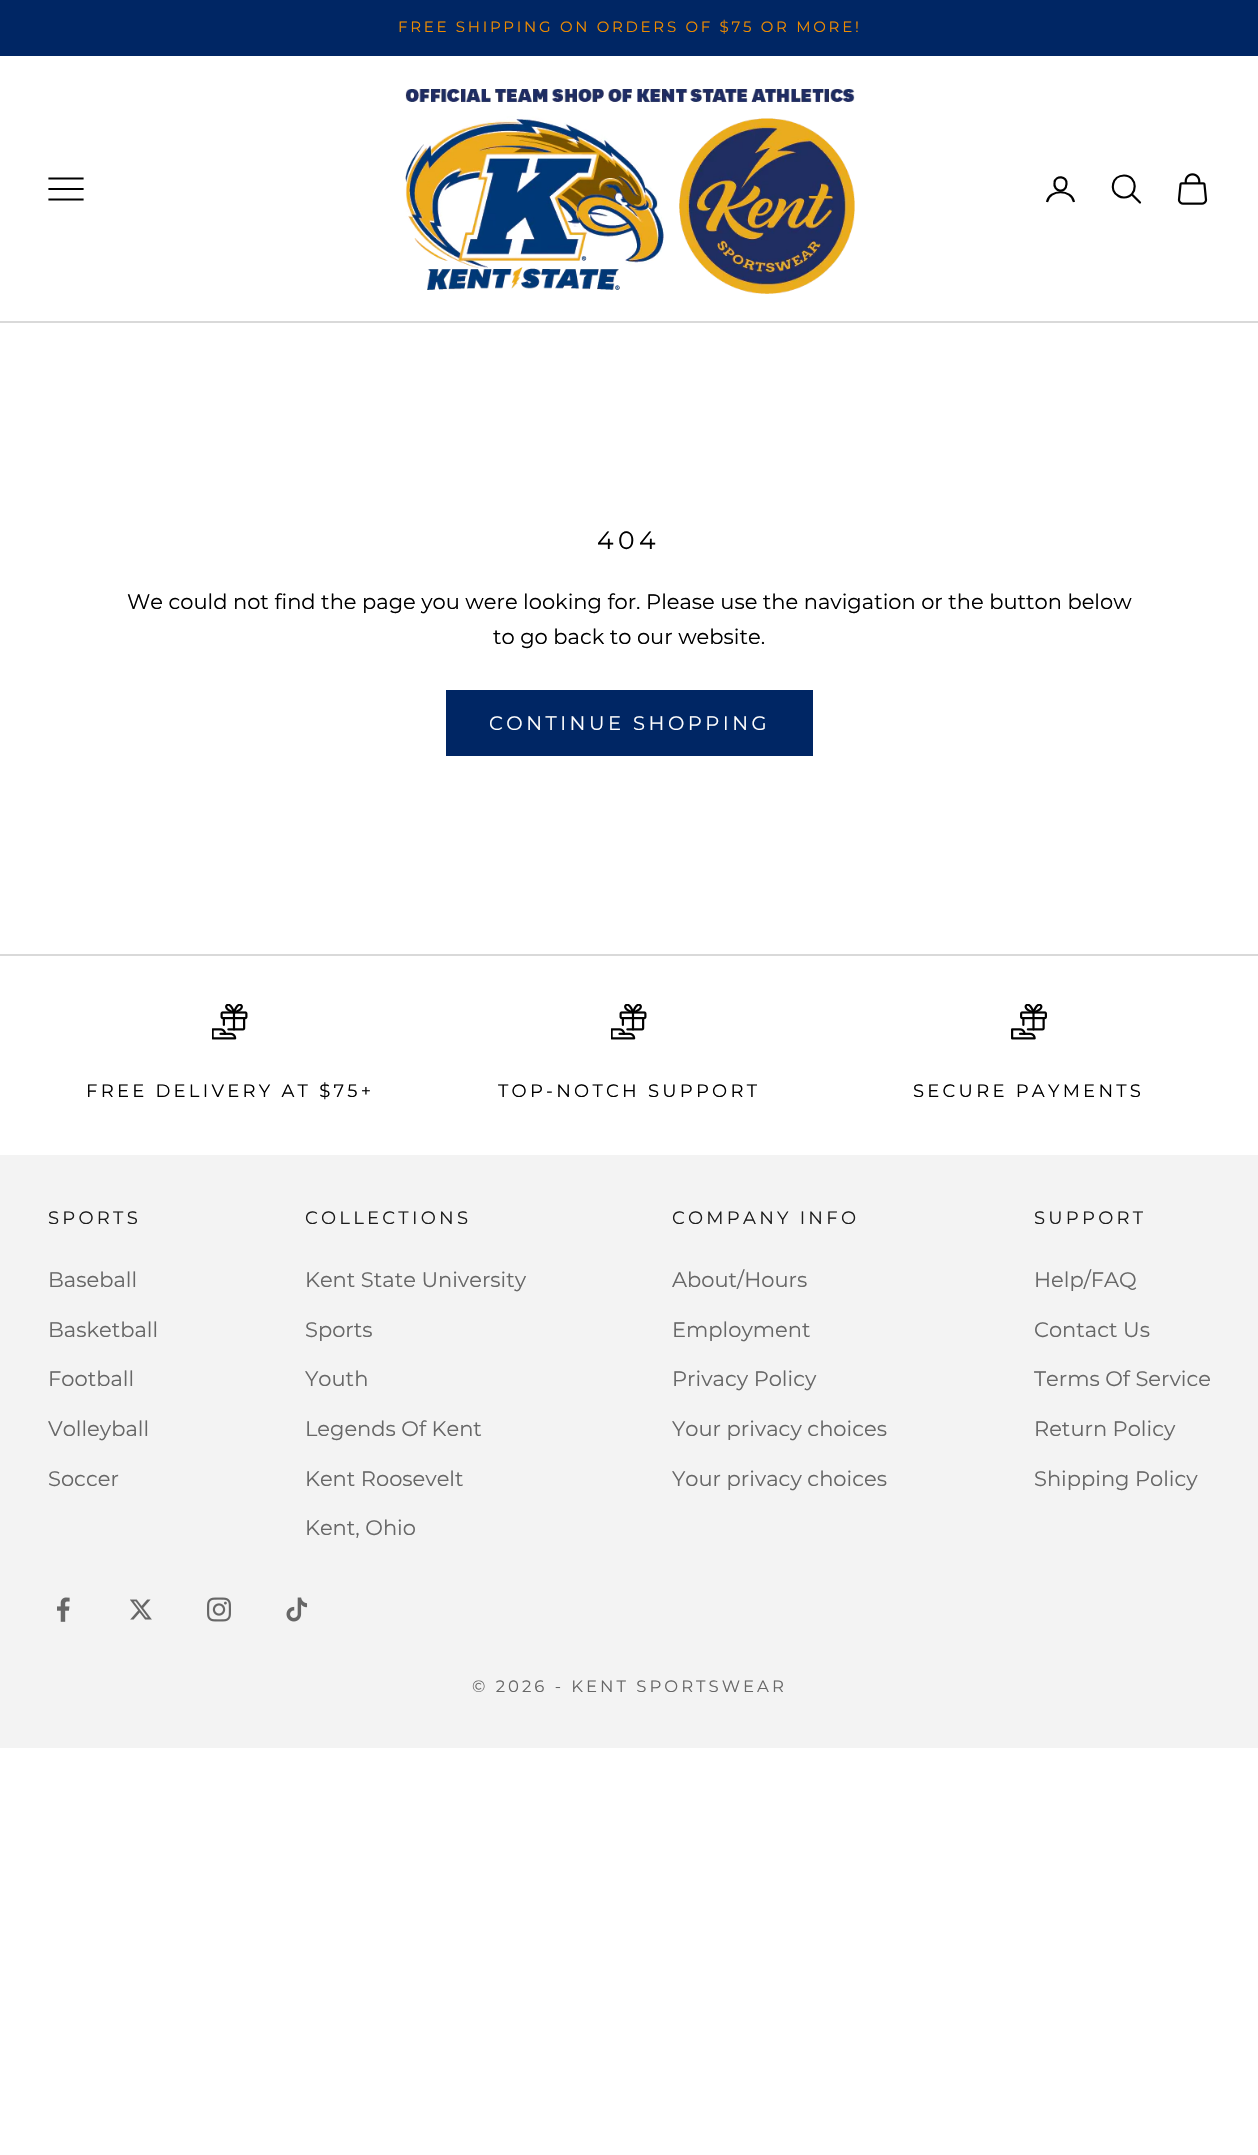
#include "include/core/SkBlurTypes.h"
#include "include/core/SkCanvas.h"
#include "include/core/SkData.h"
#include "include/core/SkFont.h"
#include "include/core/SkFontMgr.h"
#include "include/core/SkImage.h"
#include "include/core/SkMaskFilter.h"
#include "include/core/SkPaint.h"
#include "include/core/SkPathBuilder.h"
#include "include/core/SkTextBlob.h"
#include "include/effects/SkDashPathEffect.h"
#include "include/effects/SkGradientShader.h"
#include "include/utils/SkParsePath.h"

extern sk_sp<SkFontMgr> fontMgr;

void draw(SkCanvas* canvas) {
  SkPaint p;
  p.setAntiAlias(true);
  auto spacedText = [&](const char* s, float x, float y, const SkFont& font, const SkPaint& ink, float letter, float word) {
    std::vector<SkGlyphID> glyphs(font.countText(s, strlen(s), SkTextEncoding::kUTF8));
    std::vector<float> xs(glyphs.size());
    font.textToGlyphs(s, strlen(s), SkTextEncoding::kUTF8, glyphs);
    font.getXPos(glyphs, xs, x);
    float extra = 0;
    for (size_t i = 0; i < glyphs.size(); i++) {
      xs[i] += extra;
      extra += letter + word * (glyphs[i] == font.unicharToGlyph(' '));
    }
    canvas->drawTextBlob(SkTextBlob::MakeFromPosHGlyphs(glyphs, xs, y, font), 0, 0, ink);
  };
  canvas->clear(SK_ColorWHITE);
  p.setColor(SkColorSetRGB(0, 38, 100));
  canvas->drawRect(SkRect::MakeLTRB(0, 0, 1258, 56), p);
  p.setColor(SkColorSetRGB(217, 217, 217));
  canvas->drawRect(SkRect::MakeLTRB(0, 321, 1258, 323), p);
  p.setStyle(SkPaint::kStroke_Style);
  p.setStrokeWidth(2.2f);
  p.setStrokeCap(SkPaint::kSquare_Cap);
  p.setColor(SK_ColorBLACK);
  canvas->drawPath(SkPathBuilder().moveTo(49.5f, 199.5f).lineTo(82.5f, 199.5f).moveTo(49.5f, 189).lineTo(82.5f, 189).moveTo(49.5f, 178.5f).lineTo(82.5f, 178.5f).detach(), p);
  canvas->drawImageRect(SkImages::DeferredFromEncodedData(SkData::MakeFromFileName("images/1.png")), SkRect::MakeLTRB(405, 89, 855, 294), SkSamplingOptions());
  p.setStrokeCap(SkPaint::kRound_Cap);
  p.setStrokeJoin(SkPaint::kRound_Join);
  canvas->drawPath(SkPathBuilder().moveTo(1066.5f, 184).cubicTo(1066, 194, 1053, 192, 1054.5f, 182.5f).cubicTo(1055.5f, 175, 1067.5f, 176, 1066.5f, 184).close().detach(), p);
  p.setStrokeCap(SkPaint::kButt_Cap);
  p.setStrokeJoin(SkPaint::kMiter_Join);
  canvas->drawPath(SkPathBuilder().moveTo(1047, 202).cubicTo(1049.5f, 189, 1071.5f, 189, 1074, 202).detach(), p);
  canvas->drawPath(SkPathBuilder().moveTo(1124, 175.5f).cubicTo(1112.5f, 175.5f, 1108.5f, 190.5f, 1118.5f, 196).cubicTo(1120, 197, 1122, 197.5f, 1124, 197.5f).cubicTo(1138.5f, 197, 1138, 175.5f, 1124, 175.5f).close().detach(), p);
  p.setStrokeCap(SkPaint::kRound_Cap);
  canvas->drawPath(SkPathBuilder().moveTo(1132.5f, 195).lineTo(1140, 202.5f).detach(), p);
  canvas->drawImageRect(SkImages::DeferredFromEncodedData(SkData::MakeFromFileName("images/2.png")), SkRect::MakeLTRB(1177, 173, 1208, 205), SkSamplingOptions());
  p.setStyle(SkPaint::kFill_Style);
  p.setColor(SkColorSetRGB(0, 38, 100));
  canvas->drawRect(SkRect::MakeLTRB(447, 691, 812, 755), p);
  p.setStyle(SkPaint::kStroke_Style);
  p.setStrokeWidth(2);
  p.setStrokeCap(SkPaint::kButt_Cap);
  canvas->drawRect(SkRect::MakeLTRB(447, 691, 812, 755), p);
  p.setStyle(SkPaint::kFill_Style);
  p.setColor(SkColorSetRGB(217, 217, 217));
  canvas->drawRect(SkRect::MakeLTRB(0, 954, 1258, 956), p);
  canvas->drawImageRect(SkImages::DeferredFromEncodedData(SkData::MakeFromFileName("images/3.png")), SkRect::MakeLTRB(212, 1004, 248, 1040), SkSamplingOptions());
  canvas->drawImageRect(SkImages::DeferredFromEncodedData(SkData::MakeFromFileName("images/3.png")), SkRect::MakeLTRB(611, 1004, 647, 1040), SkSamplingOptions());
  canvas->drawImageRect(SkImages::DeferredFromEncodedData(SkData::MakeFromFileName("images/4.png")), SkRect::MakeLTRB(1011, 1004, 1047, 1040), SkSamplingOptions());
  p.setColor(SkColorSetRGB(243, 243, 243));
  canvas->drawRect(SkRect::MakeLTRB(0, 1155, 1258, 1748), p);
  canvas->drawImageRect(SkImages::DeferredFromEncodedData(SkData::MakeFromFileName("images/5.png")), SkRect::MakeLTRB(57, 1597, 70, 1622), SkSamplingOptions());
  canvas->drawImageRect(SkImages::DeferredFromEncodedData(SkData::MakeFromFileName("images/6.png")), SkRect::MakeLTRB(130, 1599, 152, 1620), SkSamplingOptions());
  canvas->drawImageRect(SkImages::DeferredFromEncodedData(SkData::MakeFromFileName("images/7.png")), SkRect::MakeLTRB(207, 1597, 231, 1622), SkSamplingOptions());
  canvas->drawImageRect(SkImages::DeferredFromEncodedData(SkData::MakeFromFileName("images/8.png")), SkRect::MakeLTRB(286, 1597, 308, 1622), SkSamplingOptions());
  SkFont font1(fontMgr->matchFamilyStyle("Montserrat", SkFontStyle::Normal()), 15);
  font1.setSubpixel(true);
  p.setColor(SkColorSetRGB(237, 138, 0));
  spacedText("FREE SHIPPING ON ORDERS OF $75 OR MORE!", 398, 32, font1, p, 2.7f, 0);
  SkFont font2(fontMgr->matchFamilyStyle("Montserrat", SkFontStyle::Normal()), 25);
  font2.setSubpixel(true);
  p.setColor(SK_ColorBLACK);
  spacedText("404", 597, 549, font2, p, 4.5f, 0);
  SkFont font3(fontMgr->matchFamilyStyle("Montserrat", SkFontStyle::Normal()), 21);
  font3.setSubpixel(true);
  canvas->drawString("We could not find the page you were looking for. Please use the navigation or the button below", 127, 609, font3, p);
  canvas->drawString("to go back to our website.", 493, 644, font3, p);
  SkFont font4(fontMgr->matchFamilyStyle("Montserrat", SkFontStyle::Normal()), 19.5f);
  font4.setSubpixel(true);
  p.setColor(SK_ColorWHITE);
  spacedText("CONTINUE SHOPPING", 489, 730, font4, p, 3.5f, 0);
  SkFont font5(fontMgr->matchFamilyStyle("Montserrat", SkFontStyle::Normal()), 18);
  font5.setSubpixel(true);
  p.setColor(SK_ColorBLACK);
  spacedText("FREE DELIVERY AT $75+", 86, 1097, font5, p, 3.25f, 0);
  spacedText("TOP-NOTCH SUPPORT", 498, 1097, font5, p, 3.25f, 0);
  spacedText("SECURE PAYMENTS", 913, 1097, font5, p, 3.25f, 0);
  p.setColor(SkColorSetRGB(28, 28, 28));
  spacedText("SPORTS", 48, 1224, font5, p, 3.25f, 0);
  p.setColor(SkColorSetRGB(103, 103, 103));
  canvas->drawString("Baseball", 48, 1287, font3, p);
  canvas->drawString("Basketball", 48, 1337, font3, p);
  canvas->drawString("Football", 48, 1386, font3, p);
  canvas->drawString("Volleyball", 48, 1436, font3, p);
  canvas->drawString("Soccer", 48, 1486, font3, p);
  p.setColor(SkColorSetRGB(28, 28, 28));
  spacedText("COLLECTIONS", 305, 1224, font5, p, 3.25f, 0);
  p.setColor(SkColorSetRGB(103, 103, 103));
  canvas->drawString("Kent State University", 305, 1287, font3, p);
  canvas->drawString("Sports", 305, 1337, font3, p);
  canvas->drawString("Youth", 305, 1386, font3, p);
  canvas->drawString("Legends Of Kent", 305, 1436, font3, p);
  canvas->drawString("Kent Roosevelt", 305, 1486, font3, p);
  canvas->drawString("Kent, Ohio", 305, 1535, font3, p);
  p.setColor(SkColorSetRGB(28, 28, 28));
  spacedText("COMPANY INFO", 672, 1224, font5, p, 3.25f, 0);
  p.setColor(SkColorSetRGB(103, 103, 103));
  canvas->drawString("About/Hours", 672, 1287, font3, p);
  canvas->drawString("Employment", 672, 1337, font3, p);
  canvas->drawString("Privacy Policy", 672, 1386, font3, p);
  canvas->drawString("Your privacy choices", 672, 1436, font3, p);
  canvas->drawString("Your privacy choices", 672, 1486, font3, p);
  p.setColor(SkColorSetRGB(28, 28, 28));
  spacedText("SUPPORT", 1034, 1224, font5, p, 3.25f, 0);
  p.setColor(SkColorSetRGB(103, 103, 103));
  canvas->drawString("Help/FAQ", 1034, 1287, font3, p);
  canvas->drawString("Contact Us", 1034, 1337, font3, p);
  canvas->drawString("Terms Of Service", 1034, 1386, font3, p);
  canvas->drawString("Return Policy", 1034, 1436, font3, p);
  canvas->drawString("Shipping Policy", 1034, 1486, font3, p);
  SkFont font6(fontMgr->matchFamilyStyle("Montserrat", SkFontStyle::Normal()), 16.5f);
  font6.setSubpixel(true);
  spacedText("© 2026 - KENT SPORTSWEAR", 472, 1692, font6, p, 3, 0);
}
